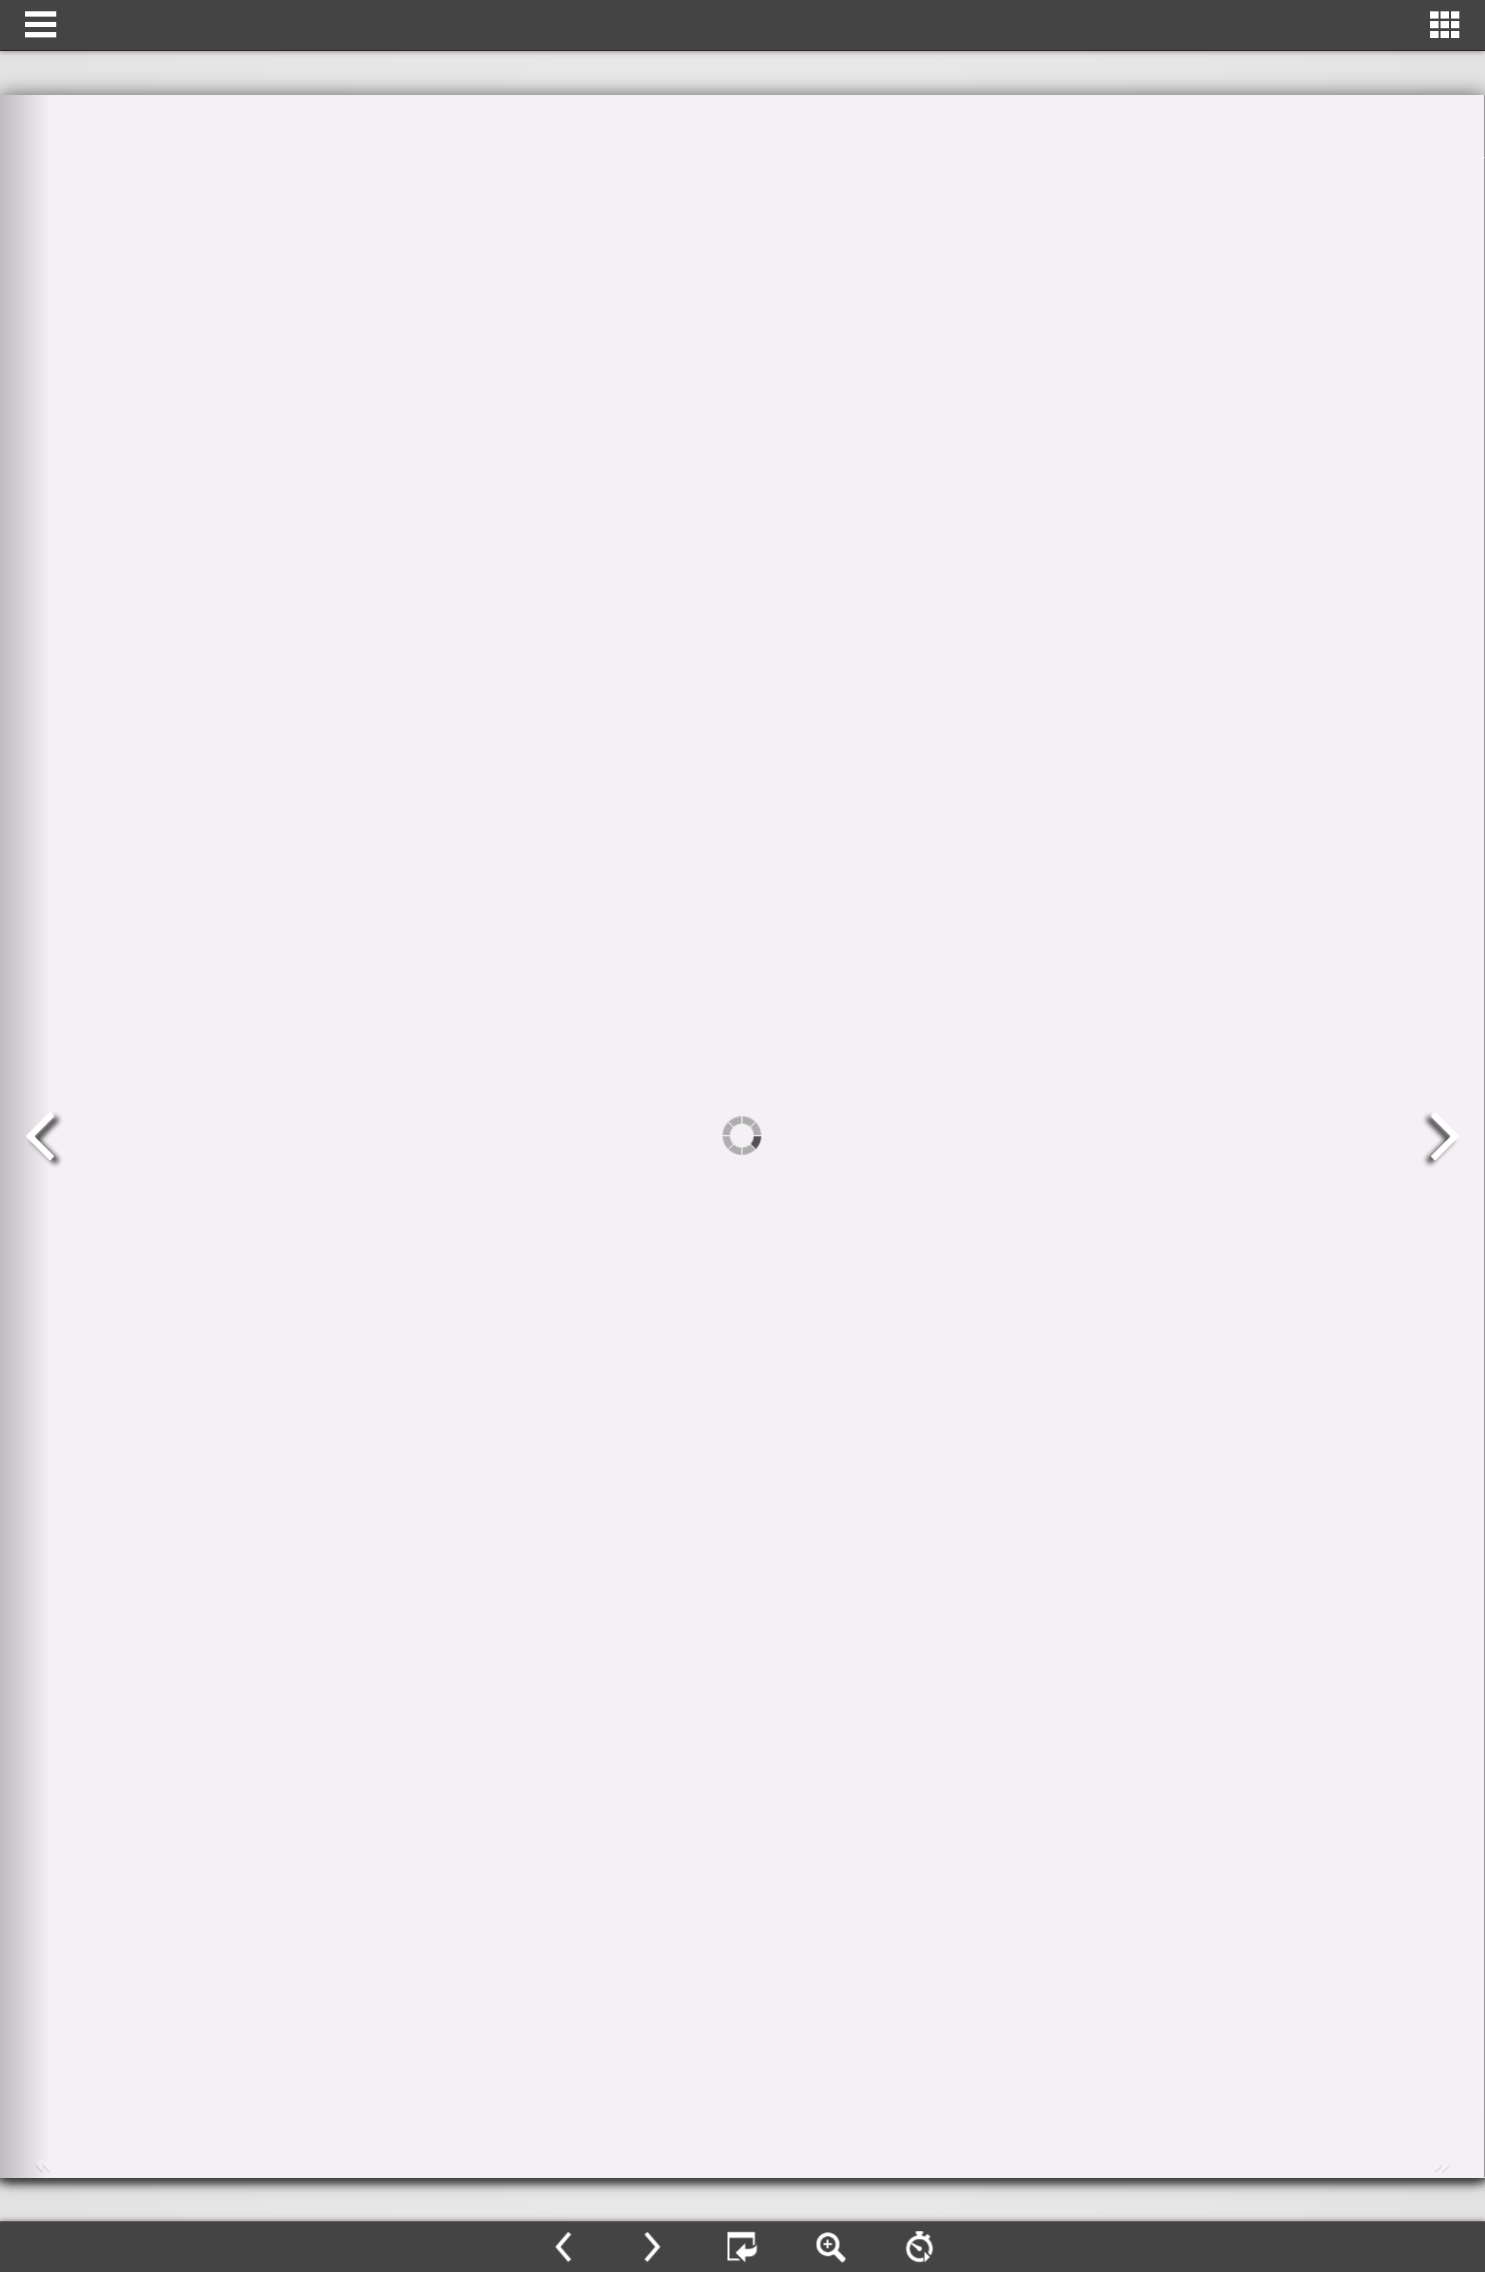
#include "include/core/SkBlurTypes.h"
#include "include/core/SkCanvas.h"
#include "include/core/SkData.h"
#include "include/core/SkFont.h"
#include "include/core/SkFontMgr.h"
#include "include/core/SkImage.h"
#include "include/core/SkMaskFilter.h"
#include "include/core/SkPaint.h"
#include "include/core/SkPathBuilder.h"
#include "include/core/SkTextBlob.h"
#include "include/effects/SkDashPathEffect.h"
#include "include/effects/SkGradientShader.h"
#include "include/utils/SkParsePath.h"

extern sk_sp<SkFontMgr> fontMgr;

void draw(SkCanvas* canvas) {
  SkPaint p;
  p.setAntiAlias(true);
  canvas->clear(SK_ColorWHITE);
  {
    const SkColor colors[] = {SkColorSetRGB(244, 244, 244), SkColorSetRGB(226, 226, 226)};
    const float stops[] = {0, 1};
    SkMatrix m = SkMatrix::Translate(743, 1136).preScale(1050, 1607);
    p.setShader(SkGradientShader::MakeRadial({0, 0}, 1, colors, stops, 2, SkTileMode::kClamp, 0, &m));
    p.setAlpha(255);
  }
  canvas->drawRect(SkRect::MakeLTRB(0, 51, 1485, 2221), p);
  p.setShader(nullptr);
  p.setColor(SkColorSetARGB(128, 40, 0, 0));
  p.setMaskFilter(SkMaskFilter::MakeBlur(kNormal_SkBlurStyle, 3));
  canvas->drawRect(SkRect::MakeLTRB(0, 0, 1485, 51), p);
  p.setMaskFilter(nullptr);
  p.setColor(SkColorSetRGB(68, 68, 68));
  canvas->drawRect(SkRect::MakeLTRB(0, 0, 1485, 50), p);
  p.setColor(SkColorSetRGB(38, 38, 38));
  canvas->drawRect(SkRect::MakeLTRB(0, 50, 1485, 51), p);
  canvas->drawImageRect(SkImages::DeferredFromEncodedData(SkData::MakeFromFileName("images/1.png")), SkRect::MakeLTRB(25, 11, 57, 38), SkSamplingOptions());
  canvas->drawImageRect(SkImages::DeferredFromEncodedData(SkData::MakeFromFileName("images/2.png")), SkRect::MakeLTRB(1430, 11, 1460, 38), SkSamplingOptions());
  p.setColor(SkColorSetARGB(179, 40, 40, 40));
  p.setMaskFilter(SkMaskFilter::MakeBlur(kNormal_SkBlurStyle, 9.5f));
  canvas->drawRect(SkRect::MakeLTRB(0, 95, 1485, 2178), p);
  p.setMaskFilter(nullptr);
  canvas->save();
  canvas->clipRect(SkRect::MakeLTRB(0, 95, 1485, 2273));
  p.setColor(SkColorSetARGB(128, 40, 40, 40));
  p.setMaskFilter(SkMaskFilter::MakeBlur(kNormal_SkBlurStyle, 6));
  canvas->drawRect(SkRect::MakeLTRB(0, 95, 1485, 2178), p);
  p.setMaskFilter(nullptr);
  p.setMaskFilter(SkMaskFilter::MakeBlur(kNormal_SkBlurStyle, 6));
  canvas->drawRect(SkRect::MakeLTRB(0, 95, 1485, 2178), p);
  p.setMaskFilter(nullptr);
  p.setMaskFilter(SkMaskFilter::MakeBlur(kNormal_SkBlurStyle, 6));
  canvas->drawRect(SkRect::MakeLTRB(0, 95, 1485, 2178), p);
  p.setMaskFilter(nullptr);
  p.setMaskFilter(SkMaskFilter::MakeBlur(kNormal_SkBlurStyle, 6));
  canvas->drawRect(SkRect::MakeLTRB(0, 95, 1485, 2178), p);
  p.setMaskFilter(nullptr);
  p.setMaskFilter(SkMaskFilter::MakeBlur(kNormal_SkBlurStyle, 6));
  canvas->drawRect(SkRect::MakeLTRB(0, 95, 1485, 2178), p);
  p.setMaskFilter(nullptr);
  p.setMaskFilter(SkMaskFilter::MakeBlur(kNormal_SkBlurStyle, 6));
  canvas->drawRect(SkRect::MakeLTRB(0, 95, 1485, 2178), p);
  p.setMaskFilter(nullptr);
  canvas->restore();
  p.setColor(SkColorSetRGB(245, 240, 245));
  canvas->drawRect(SkRect::MakeLTRB(50, 95, 1485, 2178), p);
  {
    const SkColor colors[] = {SkColorSetRGB(190, 187, 190), SkColorSetRGB(245, 240, 245)};
    const float stops[] = {0, 1};
    const SkPoint ends[] = {{0, 95}, {50, 95}};
    p.setShader(SkGradientShader::MakeLinear(ends, colors, stops, 2, SkTileMode::kClamp));
    p.setAlpha(255);
  }
  canvas->drawRect(SkRect::MakeLTRB(0, 95, 50, 2178), p);
  canvas->drawImageRect(SkImages::DeferredFromEncodedData(SkData::MakeFromFileName("images/3.png")), SkRect::MakeLTRB(722, 1116, 762, 1155), SkSamplingOptions());
  canvas->drawImageRect(SkImages::DeferredFromEncodedData(SkData::MakeFromFileName("images/4.png")), SkRect::MakeLTRB(1484, 95, 1485, 158), SkSamplingOptions());
  p.setShader(nullptr);
  p.setColor(SkColorSetRGB(146, 146, 146));
  canvas->drawRect(SkRect::MakeLTRB(1484, 158, 1485, 2115), p);
  canvas->drawImageRect(SkImages::DeferredFromEncodedData(SkData::MakeFromFileName("images/5.png")), SkRect::MakeLTRB(1484, 2115, 1485, 2178), SkSamplingOptions());
  canvas->drawImageRect(SkImages::DeferredFromEncodedData(SkData::MakeFromFileName("images/6.png")), SkRect::MakeLTRB(26, 1112, 63, 1168), SkSamplingOptions());
  canvas->drawImageRect(SkImages::DeferredFromEncodedData(SkData::MakeFromFileName("images/7.png")), SkRect::MakeLTRB(1422, 1112, 1459, 1168), SkSamplingOptions());
  canvas->drawImageRect(SkImages::DeferredFromEncodedData(SkData::MakeFromFileName("images/8.png")), SkRect::MakeLTRB(35, 2159, 50, 2173), SkSamplingOptions());
  canvas->drawImageRect(SkImages::DeferredFromEncodedData(SkData::MakeFromFileName("images/9.png")), SkRect::MakeLTRB(1435, 2164, 1450, 2173), SkSamplingOptions());
  p.setColor(SkColorSetARGB(128, 40, 0, 0));
  p.setMaskFilter(SkMaskFilter::MakeBlur(kNormal_SkBlurStyle, 3));
  canvas->drawRect(SkRect::MakeLTRB(0, 2221, 1485, 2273), p);
  p.setMaskFilter(nullptr);
  p.setColor(SkColorSetRGB(68, 68, 68));
  canvas->drawRect(SkRect::MakeLTRB(0, 2222, 1485, 2272), p);
  p.setColor(SkColorSetRGB(98, 98, 98));
  canvas->drawRect(SkRect::MakeLTRB(0, 2221, 1485, 2222), p);
  canvas->drawImageRect(SkImages::DeferredFromEncodedData(SkData::MakeFromFileName("images/10.png")), SkRect::MakeLTRB(555, 2231, 572, 2263), SkSamplingOptions());
  canvas->drawImageRect(SkImages::DeferredFromEncodedData(SkData::MakeFromFileName("images/11.png")), SkRect::MakeLTRB(644, 2231, 661, 2263), SkSamplingOptions());
  canvas->drawImageRect(SkImages::DeferredFromEncodedData(SkData::MakeFromFileName("images/12.png")), SkRect::MakeLTRB(727, 2231, 758, 2263), SkSamplingOptions());
  canvas->drawImageRect(SkImages::DeferredFromEncodedData(SkData::MakeFromFileName("images/13.png")), SkRect::MakeLTRB(816, 2232, 846, 2264), SkSamplingOptions());
  canvas->drawImageRect(SkImages::DeferredFromEncodedData(SkData::MakeFromFileName("images/14.png")), SkRect::MakeLTRB(905, 2231, 934, 2263), SkSamplingOptions());
}
